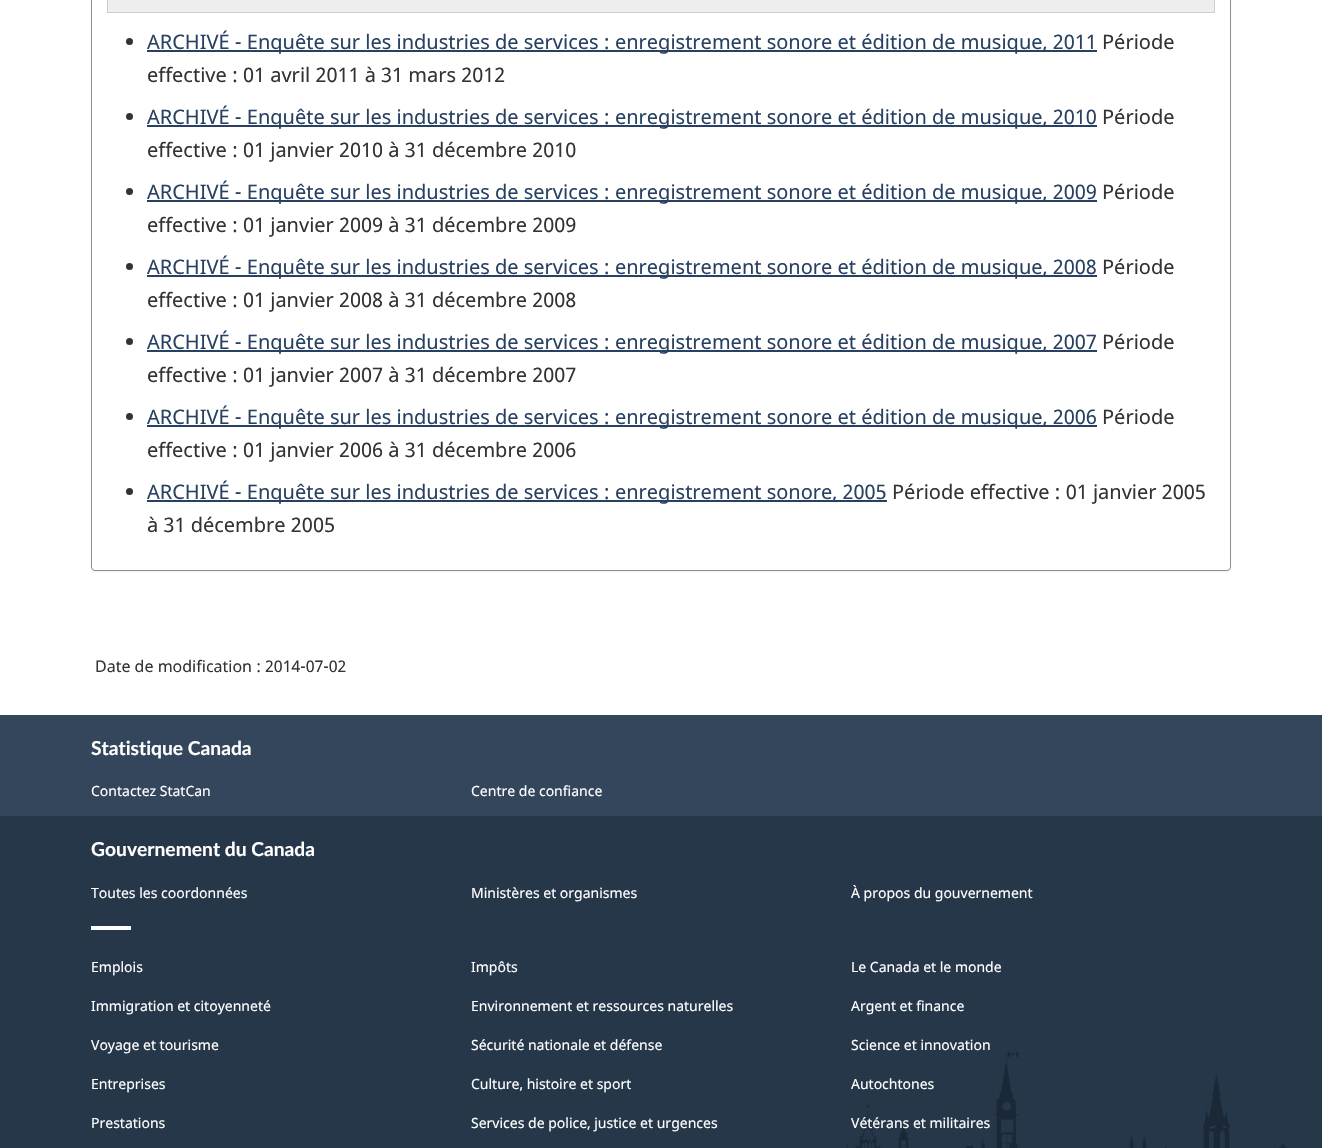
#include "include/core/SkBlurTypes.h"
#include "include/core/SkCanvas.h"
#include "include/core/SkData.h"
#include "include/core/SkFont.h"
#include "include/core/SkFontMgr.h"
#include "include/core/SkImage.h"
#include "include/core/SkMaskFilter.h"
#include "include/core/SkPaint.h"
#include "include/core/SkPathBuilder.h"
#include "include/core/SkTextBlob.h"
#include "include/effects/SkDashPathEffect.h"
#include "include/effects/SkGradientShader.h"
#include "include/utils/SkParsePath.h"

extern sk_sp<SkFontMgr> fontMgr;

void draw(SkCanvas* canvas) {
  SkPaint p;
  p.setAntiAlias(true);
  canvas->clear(SK_ColorWHITE);
  p.setColor(SkColorSetARGB(13, 0, 0, 0));
  p.setMaskFilter(SkMaskFilter::MakeBlur(kNormal_SkBlurStyle, 0.5f));
  canvas->drawRoundRect(SkRect::MakeLTRB(91, -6, 1231, 572), 4, 4, p);
  p.setMaskFilter(nullptr);
  p.setColor(SK_ColorWHITE);
  canvas->drawRoundRect(SkRect::MakeLTRB(91.5f, -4.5f, 1230.5f, 570.5f), 3.5f, 3.5f, p);
  p.setStyle(SkPaint::kStroke_Style);
  p.setStrokeWidth(1);
  p.setColor(SkColorSetRGB(142, 142, 142));
  canvas->drawRoundRect(SkRect::MakeLTRB(91.5f, -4.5f, 1230.5f, 570.5f), 3.5f, 3.5f, p);
  p.setStyle(SkPaint::kFill_Style);
  p.setColor(SkColorSetRGB(238, 238, 238));
  canvas->drawRect(SkRect::MakeLTRB(107.5f, -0.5f, 1214.5f, 12.5f), p);
  p.setStyle(SkPaint::kStroke_Style);
  p.setColor(SkColorSetRGB(204, 204, 204));
  canvas->drawRect(SkRect::MakeLTRB(107.5f, -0.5f, 1214.5f, 12.5f), p);
  p.setStyle(SkPaint::kFill_Style);
  p.setColor(SkColorSetRGB(51, 51, 51));
  canvas->drawCircle(129.5f, 41.5f, 3.5f, p);
  p.setColor(SkColorSetRGB(40, 65, 98));
  canvas->drawRect(SkRect::MakeLTRB(147, 50, 1097, 52), p);
  p.setColor(SkColorSetRGB(51, 51, 51));
  canvas->drawCircle(129.5f, 116.5f, 3.5f, p);
  p.setColor(SkColorSetRGB(40, 65, 98));
  canvas->drawRect(SkRect::MakeLTRB(147, 125, 1097, 127), p);
  p.setColor(SkColorSetRGB(51, 51, 51));
  canvas->drawCircle(129.5f, 191.5f, 3.5f, p);
  p.setColor(SkColorSetRGB(40, 65, 98));
  canvas->drawRect(SkRect::MakeLTRB(147, 200, 1097, 202), p);
  p.setColor(SkColorSetRGB(51, 51, 51));
  canvas->drawCircle(129.5f, 266.5f, 3.5f, p);
  p.setColor(SkColorSetRGB(40, 65, 98));
  canvas->drawRect(SkRect::MakeLTRB(147, 275, 1097, 277), p);
  p.setColor(SkColorSetRGB(51, 51, 51));
  canvas->drawCircle(129.5f, 341.5f, 3.5f, p);
  p.setColor(SkColorSetRGB(40, 65, 98));
  canvas->drawRect(SkRect::MakeLTRB(147, 350, 1097, 352), p);
  p.setColor(SkColorSetRGB(51, 51, 51));
  canvas->drawCircle(129.5f, 416.5f, 3.5f, p);
  p.setColor(SkColorSetRGB(40, 65, 98));
  canvas->drawRect(SkRect::MakeLTRB(147, 425, 1097, 427), p);
  p.setColor(SkColorSetRGB(51, 51, 51));
  canvas->drawCircle(129.5f, 491.5f, 3.5f, p);
  p.setColor(SkColorSetRGB(40, 65, 98));
  canvas->drawRect(SkRect::MakeLTRB(147, 500, 887, 502), p);
  p.setColor(SkColorSetRGB(51, 70, 92));
  canvas->drawRect(SkRect::MakeLTRB(0, 715, 1322, 816), p);
  p.setColor(SkColorSetRGB(38, 55, 74));
  canvas->drawRect(SkRect::MakeLTRB(0, 816, 1322, 1148), p);
  canvas->drawImageRect(SkImages::DeferredFromEncodedData(SkData::MakeFromFileName("images/1.png")), SkRect::MakeLTRB(846, 1051, 1287, 1148), SkSamplingOptions());
  p.setColor(SK_ColorWHITE);
  canvas->drawRect(SkRect::MakeLTRB(91, 926, 131, 930), p);
  SkFont font1(fontMgr->matchFamilyStyle("Noto Sans", SkFontStyle::Normal()), 20);
  font1.setSubpixel(true);
  p.setColor(SkColorSetRGB(40, 65, 98));
  canvas->drawString("ARCHIVÉ - Enquête sur les industries de services : enregistrement sonore et édition de musique, 2011", 147, 49, font1, p);
  p.setColor(SkColorSetRGB(51, 51, 51));
  canvas->drawString("Période", 1102, 49, font1, p);
  canvas->drawString("effective : 01 avril 2011 à 31 mars 2012", 147, 82, font1, p);
  p.setColor(SkColorSetRGB(40, 65, 98));
  canvas->drawString("ARCHIVÉ - Enquête sur les industries de services : enregistrement sonore et édition de musique, 2010", 147, 124, font1, p);
  p.setColor(SkColorSetRGB(51, 51, 51));
  canvas->drawString("Période", 1102, 124, font1, p);
  canvas->drawString("effective : 01 janvier 2010 à 31 décembre 2010", 147, 157, font1, p);
  p.setColor(SkColorSetRGB(40, 65, 98));
  canvas->drawString("ARCHIVÉ - Enquête sur les industries de services : enregistrement sonore et édition de musique, 2009", 147, 199, font1, p);
  p.setColor(SkColorSetRGB(51, 51, 51));
  canvas->drawString("Période", 1102, 199, font1, p);
  canvas->drawString("effective : 01 janvier 2009 à 31 décembre 2009", 147, 232, font1, p);
  p.setColor(SkColorSetRGB(40, 65, 98));
  canvas->drawString("ARCHIVÉ - Enquête sur les industries de services : enregistrement sonore et édition de musique, 2008", 147, 274, font1, p);
  p.setColor(SkColorSetRGB(51, 51, 51));
  canvas->drawString("Période", 1102, 274, font1, p);
  canvas->drawString("effective : 01 janvier 2008 à 31 décembre 2008", 147, 307, font1, p);
  p.setColor(SkColorSetRGB(40, 65, 98));
  canvas->drawString("ARCHIVÉ - Enquête sur les industries de services : enregistrement sonore et édition de musique, 2007", 147, 349, font1, p);
  p.setColor(SkColorSetRGB(51, 51, 51));
  canvas->drawString("Période", 1102, 349, font1, p);
  canvas->drawString("effective : 01 janvier 2007 à 31 décembre 2007", 147, 382, font1, p);
  p.setColor(SkColorSetRGB(40, 65, 98));
  canvas->drawString("ARCHIVÉ - Enquête sur les industries de services : enregistrement sonore et édition de musique, 2006", 147, 424, font1, p);
  p.setColor(SkColorSetRGB(51, 51, 51));
  canvas->drawString("Période", 1102, 424, font1, p);
  canvas->drawString("effective : 01 janvier 2006 à 31 décembre 2006", 147, 457, font1, p);
  p.setColor(SkColorSetRGB(40, 65, 98));
  canvas->drawString("ARCHIVÉ - Enquête sur les industries de services : enregistrement sonore, 2005", 147, 499, font1, p);
  p.setColor(SkColorSetRGB(51, 51, 51));
  canvas->drawString("Période effective : 01 janvier 2005", 892, 499, font1, p);
  canvas->drawString("à 31 décembre 2005", 147, 532, font1, p);
  SkFont font2(fontMgr->matchFamilyStyle("Noto Sans", SkFontStyle::Normal()), 16);
  font2.setSubpixel(true);
  canvas->drawString("Date de modification : 2014-07-02", 95, 672, font2, p);
  SkFont font3(fontMgr->matchFamilyStyle("Lato", SkFontStyle::Bold()), 19.25f);
  font3.setSubpixel(true);
  p.setColor(SK_ColorWHITE);
  canvas->drawString("Statistique Canada", 91, 755, font3, p);
  SkFont font4(fontMgr->matchFamilyStyle("Noto Sans", SkFontStyle::Normal()), 14);
  font4.setSubpixel(true);
  canvas->drawString("Contactez StatCan", 91, 796, font4, p);
  canvas->drawString("Centre de confiance", 471, 796, font4, p);
  canvas->drawString("Gouvernement du Canada", 91, 856, font3, p);
  canvas->drawString("Toutes les coordonnées", 91, 898, font4, p);
  canvas->drawString("Ministères et organismes", 471, 898, font4, p);
  canvas->drawString("À propos du gouvernement", 851, 898, font4, p);
  canvas->drawString("Emplois", 91, 972, font4, p);
  canvas->drawString("Impôts", 471, 972, font4, p);
  canvas->drawString("Le Canada et le monde", 851, 972, font4, p);
  canvas->drawString("Immigration et citoyenneté", 91, 1011, font4, p);
  canvas->drawString("Environnement et ressources naturelles", 471, 1011, font4, p);
  canvas->drawString("Argent et finance", 851, 1011, font4, p);
  canvas->drawString("Voyage et tourisme", 91, 1050, font4, p);
  canvas->drawString("Sécurité nationale et défense", 471, 1050, font4, p);
  canvas->drawString("Science et innovation", 851, 1050, font4, p);
  canvas->drawString("Entreprises", 91, 1089, font4, p);
  canvas->drawString("Culture, histoire et sport", 471, 1089, font4, p);
  canvas->drawString("Autochtones", 851, 1089, font4, p);
  canvas->drawString("Prestations", 91, 1128, font4, p);
  canvas->drawString("Services de police, justice et urgences", 471, 1128, font4, p);
  canvas->drawString("Vétérans et militaires", 851, 1128, font4, p);
}
